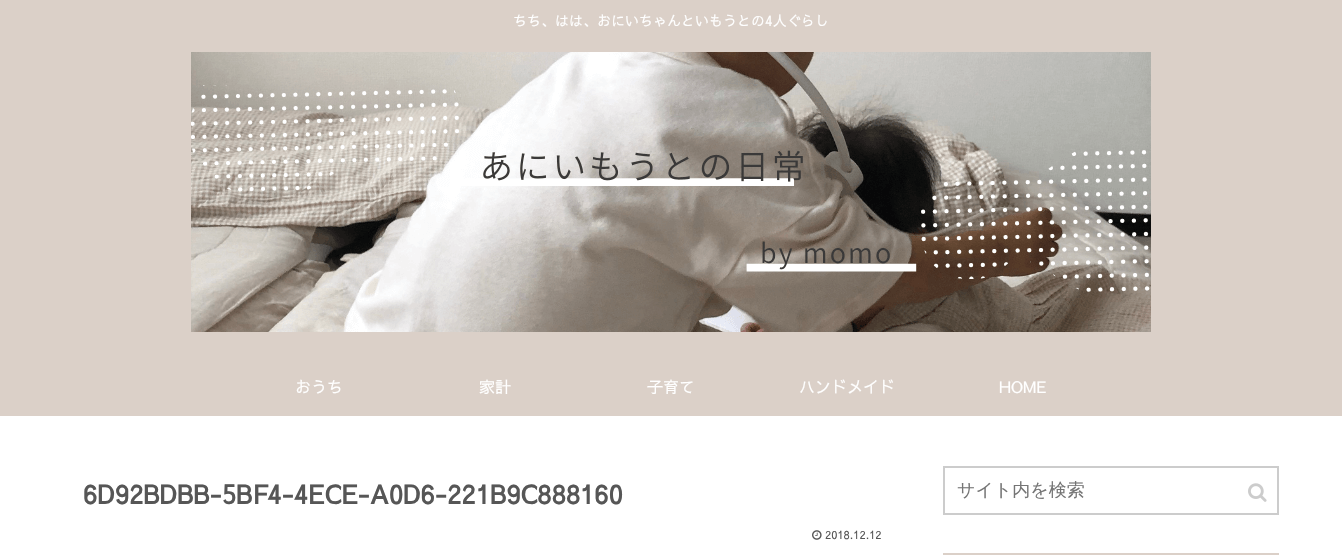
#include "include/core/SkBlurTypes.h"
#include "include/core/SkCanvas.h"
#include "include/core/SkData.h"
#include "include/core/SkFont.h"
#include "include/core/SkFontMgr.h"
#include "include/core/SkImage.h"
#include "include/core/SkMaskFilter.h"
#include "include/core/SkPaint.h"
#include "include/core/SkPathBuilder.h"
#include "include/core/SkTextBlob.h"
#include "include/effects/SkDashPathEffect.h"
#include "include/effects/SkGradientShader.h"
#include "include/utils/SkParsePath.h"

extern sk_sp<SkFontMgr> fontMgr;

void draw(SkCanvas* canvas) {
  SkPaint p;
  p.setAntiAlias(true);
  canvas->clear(SK_ColorWHITE);
  p.setColor(SkColorSetRGB(219, 208, 200));
  canvas->drawRect(SkRect::MakeLTRB(0, 0, 1342, 416), p);
  canvas->drawImageRect(SkImages::DeferredFromEncodedData(SkData::MakeFromFileName("images/1.png")), SkRect::MakeLTRB(191, 52, 1151, 332), SkSamplingOptions());
  canvas->drawImageRect(SkImages::DeferredFromEncodedData(SkData::MakeFromFileName("images/2.png")), SkRect::MakeLTRB(812, 530, 822, 540), SkSamplingOptions());
  p.setStyle(SkPaint::kStroke_Style);
  p.setStrokeWidth(2);
  p.setColor(SkColorSetRGB(204, 204, 204));
  canvas->drawRect(SkRect::MakeLTRB(944, 467, 1278, 514), p);
  canvas->drawImageRect(SkImages::DeferredFromEncodedData(SkData::MakeFromFileName("images/3.png")), SkRect::MakeLTRB(1248, 483, 1267, 502), SkSamplingOptions());
  p.setStyle(SkPaint::kFill_Style);
  p.setColor(SkColorSetRGB(219, 208, 200));
  canvas->drawRect(SkRect::MakeLTRB(943, 553, 1279, 555), p);
  SkFont font1(fontMgr->matchFamilyStyle("Sawarabi Gothic", SkFontStyle::Normal()), 14);
  font1.setSubpixel(true);
  p.setColor(SK_ColorWHITE);
  canvas->drawString("ちち、はは、おにいちゃんといもうとの4人ぐらし", 513, 26, font1, p);
  SkFont font2(fontMgr->matchFamilyStyle("Sawarabi Gothic", SkFontStyle::Normal()), 16);
  font2.setSubpixel(true);
  canvas->drawString("おうち", 295, 393, font2, p);
  canvas->drawString("家計", 479, 393, font2, p);
  canvas->drawString("子育て", 647, 393, font2, p);
  canvas->drawString("ハンドメイド", 799, 393, font2, p);
  canvas->drawString("HOME", 999, 393, font2, p);
  SkFont font3(fontMgr->matchFamilyStyle("Sawarabi Gothic", SkFontStyle::Bold()), 26);
  font3.setSubpixel(true);
  p.setColor(SkColorSetRGB(86, 86, 86));
  canvas->drawString("6D92BDBB-5BF4-4ECE-A0D6-221B9C888160", 83, 504, font3, p);
  SkFont font4(fontMgr->matchFamilyStyle("Sawarabi Gothic", SkFontStyle::Normal()), 11.25f);
  font4.setSubpixel(true);
  canvas->drawString("2018.12.12", 825, 539, font4, p);
  SkFont font5(fontMgr->matchFamilyStyle("WenQuanYi Zen Hei", SkFontStyle(500, SkFontStyle::kNormal_Width, SkFontStyle::kUpright_Slant)), 18);
  font5.setSubpixel(true);
  p.setColor(SkColorSetRGB(117, 117, 117));
  canvas->drawString("サイト内を検索", 957, 496, font5, p);
}
